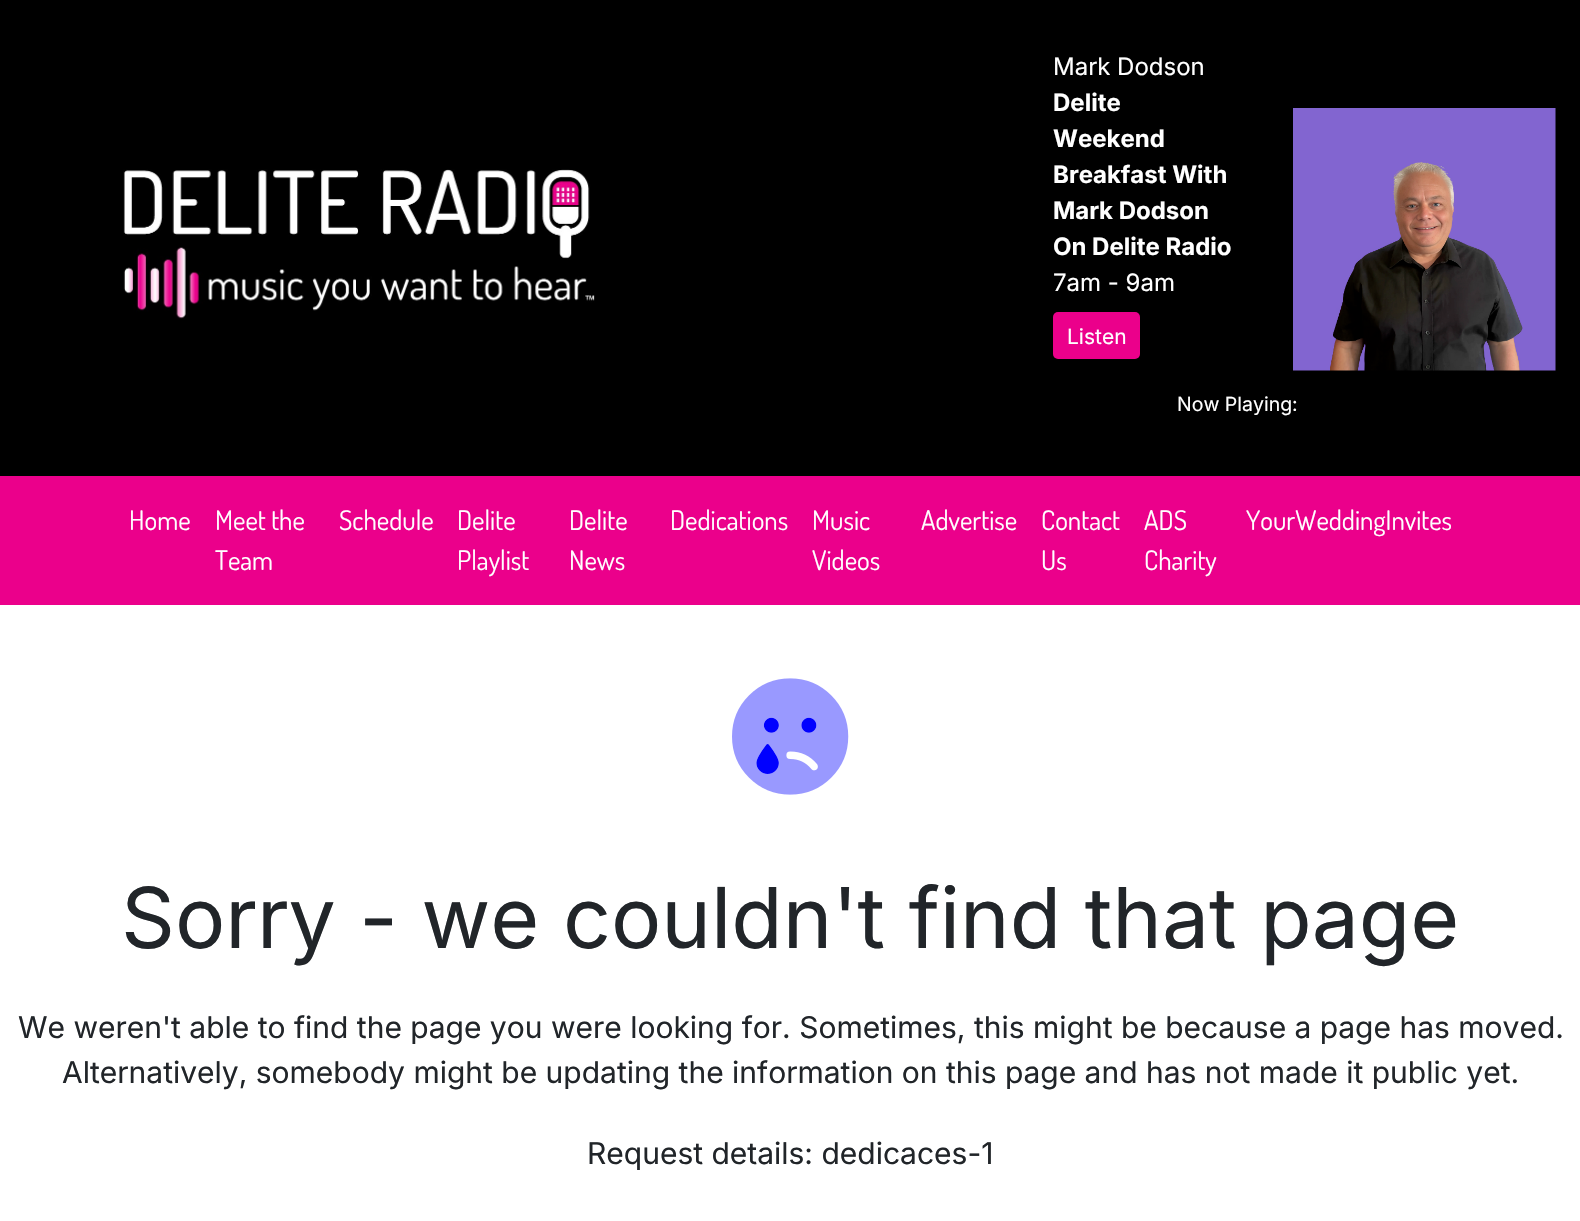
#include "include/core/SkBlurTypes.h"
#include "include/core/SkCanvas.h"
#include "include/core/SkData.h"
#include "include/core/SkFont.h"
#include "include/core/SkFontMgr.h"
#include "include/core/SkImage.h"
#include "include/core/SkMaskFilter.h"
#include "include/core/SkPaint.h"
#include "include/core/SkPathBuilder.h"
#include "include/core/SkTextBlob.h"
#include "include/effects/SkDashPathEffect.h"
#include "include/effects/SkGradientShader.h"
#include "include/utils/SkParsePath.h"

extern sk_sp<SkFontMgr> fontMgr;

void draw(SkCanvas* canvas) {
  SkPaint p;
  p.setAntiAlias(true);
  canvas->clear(SK_ColorWHITE);
  p.setColor(SK_ColorBLACK);
  canvas->drawRect(SkRect::MakeLTRB(0, 0, 1580, 476), p);
  canvas->drawImageRect(SkImages::DeferredFromEncodedData(SkData::MakeFromFileName("images/1.png")), SkRect::MakeLTRB(123, 169, 595, 319), SkSamplingOptions());
  p.setColor(SkColorSetRGB(235, 0, 139));
  canvas->drawRoundRect(SkRect::MakeLTRB(1053, 312, 1140, 359), 5, 5, p);
  canvas->drawImageRect(SkImages::DeferredFromEncodedData(SkData::MakeFromFileName("images/2.png")), SkRect::MakeLTRB(1293, 108, 1556, 371), SkSamplingOptions());
  canvas->drawRect(SkRect::MakeLTRB(0, 476, 1580, 605), p);
  canvas->drawImageRect(SkImages::DeferredFromEncodedData(SkData::MakeFromFileName("images/4.png")), SkRect::MakeLTRB(756, 717, 817, 774), SkSamplingOptions());
  canvas->drawImageRect(SkImages::DeferredFromEncodedData(SkData::MakeFromFileName("images/3.png")), SkRect::MakeLTRB(732, 678, 849, 795), SkSamplingOptions());
  SkFont font1(fontMgr->matchFamilyStyle("Inter", SkFontStyle::Normal()), 24);
  font1.setSubpixel(true);
  p.setColor(SK_ColorWHITE);
  canvas->drawString("Mark Dodson", 1053, 75, font1, p);
  SkFont font2(fontMgr->matchFamilyStyle("Inter", SkFontStyle::Bold()), 24);
  font2.setSubpixel(true);
  canvas->drawString("Delite", 1053, 111, font2, p);
  canvas->drawString("Weekend", 1053, 147, font2, p);
  canvas->drawString("Breakfast With", 1053, 183, font2, p);
  canvas->drawString("Mark Dodson", 1053, 219, font2, p);
  canvas->drawString("On Delite Radio", 1053, 255, font2, p);
  canvas->drawString("7am - 9am", 1053, 291, font1, p);
  SkFont font3(fontMgr->matchFamilyStyle("Inter", SkFontStyle::Normal()), 21);
  font3.setSubpixel(true);
  canvas->drawString("Listen", 1067, 344, font3, p);
  SkFont font4(fontMgr->matchFamilyStyle("Inter", SkFontStyle::Normal()), 19.5f);
  font4.setSubpixel(true);
  canvas->drawString("Now Playing:", 1177, 411, font4, p);
  SkFont font5(fontMgr->matchFamilyStyle("Dosis", SkFontStyle::Normal()), 27);
  font5.setSubpixel(true);
  canvas->drawString("Home", 129, 530, font5, p);
  canvas->drawString("Meet the", 215, 530, font5, p);
  canvas->drawString("Team", 215, 570, font5, p);
  canvas->drawString("Schedule", 339, 530, font5, p);
  canvas->drawString("Delite", 457, 530, font5, p);
  canvas->drawString("Playlist", 457, 570, font5, p);
  canvas->drawString("Delite", 569, 530, font5, p);
  canvas->drawString("News", 569, 570, font5, p);
  canvas->drawString("Dedications", 670, 530, font5, p);
  canvas->drawString("Music", 812, 530, font5, p);
  canvas->drawString("Videos", 812, 570, font5, p);
  canvas->drawString("Advertise", 921, 530, font5, p);
  canvas->drawString("Contact", 1041, 530, font5, p);
  canvas->drawString("Us", 1041, 570, font5, p);
  canvas->drawString("ADS", 1144, 530, font5, p);
  canvas->drawString("Charity", 1144, 570, font5, p);
  canvas->drawString("YourWeddingInvites", 1246, 530, font5, p);
  SkFont font6(fontMgr->matchFamilyStyle("Inter", SkFontStyle::Normal()), 84);
  font6.setSubpixel(true);
  p.setColor(SkColorSetRGB(33, 37, 41));
  canvas->drawString("Sorry - we couldn't find that page", 121, 948, font6, p);
  SkFont font7(fontMgr->matchFamilyStyle("Inter", SkFontStyle::Normal()), 30);
  font7.setSubpixel(true);
  canvas->drawString("We weren't able to find the page you were looking for. Sometimes, this might be because a page has moved.", 18, 1038, font7, p);
  canvas->drawString("Alternatively, somebody might be updating the information on this page and has not made it public yet.", 62, 1083, font7, p);
  canvas->drawString("Request details: dedicaces-1", 587, 1164, font7, p);
}
